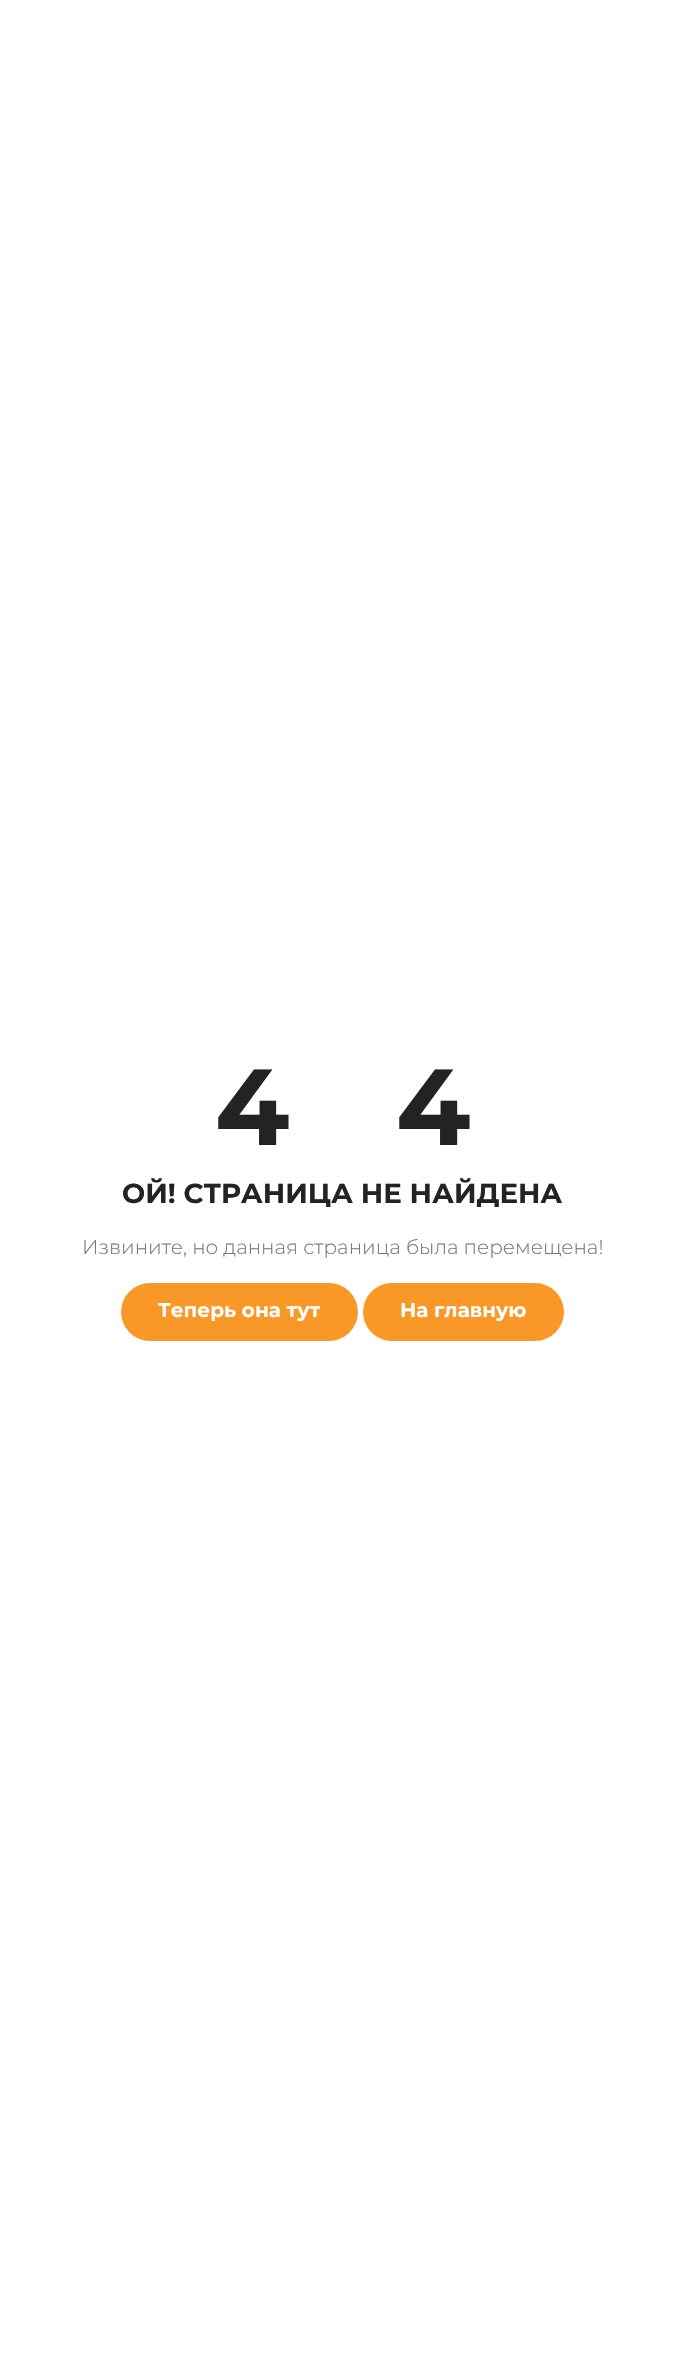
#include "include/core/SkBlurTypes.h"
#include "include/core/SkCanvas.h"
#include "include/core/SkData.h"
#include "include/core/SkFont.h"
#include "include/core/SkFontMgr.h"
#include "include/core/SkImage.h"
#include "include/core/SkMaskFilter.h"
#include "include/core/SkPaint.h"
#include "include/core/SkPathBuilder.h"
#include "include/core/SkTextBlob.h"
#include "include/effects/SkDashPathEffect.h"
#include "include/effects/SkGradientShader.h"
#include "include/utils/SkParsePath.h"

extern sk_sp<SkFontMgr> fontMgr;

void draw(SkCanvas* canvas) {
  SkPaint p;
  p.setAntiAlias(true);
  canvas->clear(SK_ColorWHITE);
  p.setColor(SkColorSetRGB(249, 152, 39));
  canvas->drawRoundRect(SkRect::MakeLTRB(121, 1283, 358, 1341), 29, 29, p);
  canvas->drawRoundRect(SkRect::MakeLTRB(363, 1283, 564, 1341), 29, 29, p);
  SkFont font1(fontMgr->matchFamilyStyle("Montserrat", SkFontStyle::Bold()), 108);
  font1.setSubpixel(true);
  p.setColor(SkColorSetRGB(35, 35, 35));
  canvas->drawString("4", 215, 1145, font1, p);
  canvas->drawString("4", 396, 1145, font1, p);
  SkFont font2(fontMgr->matchFamilyStyle("Montserrat", SkFontStyle::Bold()), 27.5f);
  font2.setSubpixel(true);
  canvas->drawString("ОЙ! СТРАНИЦА НЕ НАЙДЕНА", 122, 1203, font2, p);
  SkFont font3(fontMgr->matchFamilyStyle("Montserrat", SkFontStyle(300, SkFontStyle::kNormal_Width, SkFontStyle::kUpright_Slant)), 20);
  font3.setSubpixel(true);
  p.setColor(SkColorSetRGB(120, 120, 120));
  canvas->drawString("Извините, но данная страница была перемещена!", 82, 1254, font3, p);
  SkFont font4(fontMgr->matchFamilyStyle("Montserrat", SkFontStyle::Bold()), 20);
  font4.setSubpixel(true);
  p.setColor(SK_ColorWHITE);
  canvas->drawString("Теперь она тут", 158, 1317, font4, p);
  canvas->drawString("На главную", 400, 1317, font4, p);
}
